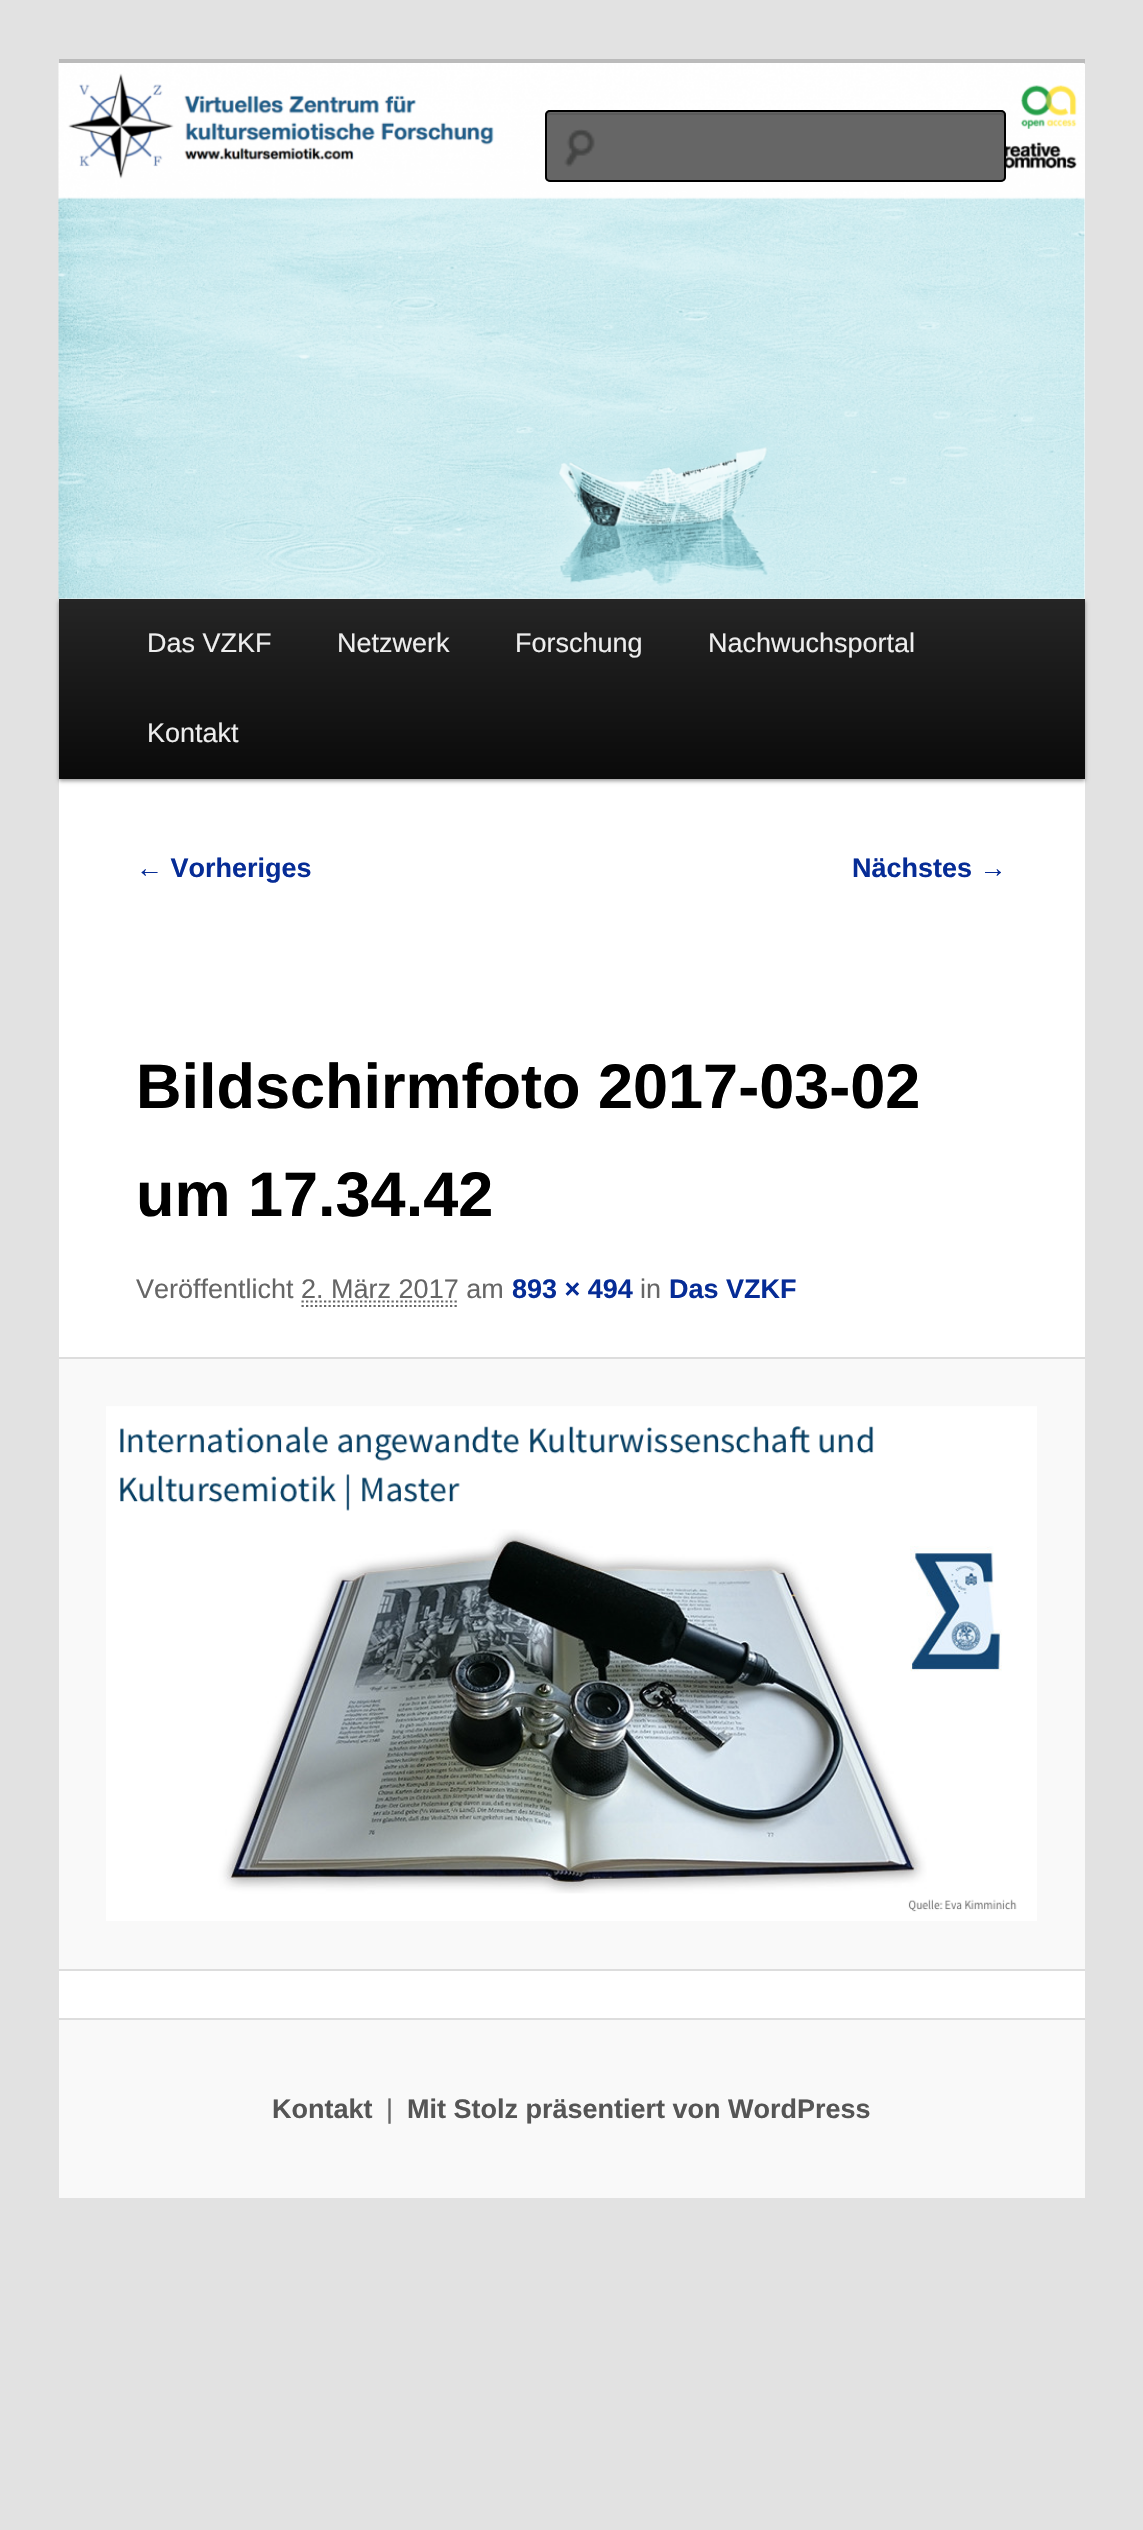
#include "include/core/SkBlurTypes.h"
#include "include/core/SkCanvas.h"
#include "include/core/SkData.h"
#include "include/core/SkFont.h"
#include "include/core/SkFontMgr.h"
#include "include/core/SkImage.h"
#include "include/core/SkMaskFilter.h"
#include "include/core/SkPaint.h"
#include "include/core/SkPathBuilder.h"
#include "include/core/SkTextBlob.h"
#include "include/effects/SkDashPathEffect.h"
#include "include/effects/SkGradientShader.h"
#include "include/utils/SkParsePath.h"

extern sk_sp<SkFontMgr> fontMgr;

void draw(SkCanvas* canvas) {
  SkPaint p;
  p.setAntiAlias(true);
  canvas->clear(SkColorSetRGB(226, 226, 226));
  p.setColor(SK_ColorWHITE);
  canvas->drawRect(SkRect::MakeLTRB(59, 64, 1085, 2018), p);
  p.setColor(SkColorSetRGB(187, 187, 187));
  canvas->drawRect(SkRect::MakeLTRB(59, 59, 1085, 64), p);
  p.setColor(SkColorSetARGB(102, 0, 0, 0));
  p.setMaskFilter(SkMaskFilter::MakeBlur(kNormal_SkBlurStyle, 2));
  canvas->drawRect(SkRect::MakeLTRB(59, 601, 1085, 781), p);
  p.setMaskFilter(nullptr);
  canvas->drawImageRect(SkImages::DeferredFromEncodedData(SkData::MakeFromFileName("images/1.png")), SkRect::MakeLTRB(58, 63, 1085, 599), SkSamplingOptions());
  p.setColor(SkColorSetRGB(102, 102, 102));
  canvas->drawRoundRect(SkRect::MakeLTRB(545, 110, 1006, 182), 5, 5, p);
  canvas->drawImageRect(SkImages::DeferredFromEncodedData(SkData::MakeFromFileName("images/2.png")), SkRect::MakeLTRB(564, 129, 595, 167), SkSamplingOptions());
  p.setColor(SkColorSetRGB(92, 92, 92));
  canvas->drawPath(SkPathBuilder().moveTo(549, 115).lineTo(1001, 115).cubicTo(1002, 115, 1004, 116, 1004, 117).lineTo(1004, 114).lineTo(1003, 113).lineTo(549, 113).cubicTo(547, 113, 547, 115, 547, 117).cubicTo(547, 116, 548, 115, 549, 115).close().detach(), p);
  p.setStyle(SkPaint::kStroke_Style);
  p.setStrokeWidth(2);
  p.setColor(SK_ColorBLACK);
  canvas->drawRoundRect(SkRect::MakeLTRB(546, 111, 1005, 181), 4, 4, p);
  p.setStyle(SkPaint::kFill_Style);
  {
    const SkColor colors[] = {SkColorSetRGB(37, 37, 37), SkColorSetRGB(10, 10, 10)};
    const float stops[] = {0, 1};
    const SkPoint ends[] = {{572, 599}, {572, 779}};
    p.setShader(SkGradientShader::MakeLinear(ends, colors, stops, 2, SkTileMode::kClamp));
    p.setAlpha(255);
  }
  canvas->drawRect(SkRect::MakeLTRB(59, 599, 1085, 779), p);
  p.setStyle(SkPaint::kStroke_Style);
  p.setStrokeWidth(2.2f);
  p.setShader(nullptr);
  p.setColor(SkColorSetRGB(102, 102, 102));
  p.setPathEffect(SkDashPathEffect::Make({{2.25f, 2.25f}}, 0));
  canvas->drawPath(SkPathBuilder().moveTo(301.5f, 1301.5f).lineTo(459, 1301.5f).detach(), p);
  p.setPathEffect(nullptr);
  p.setPathEffect(SkDashPathEffect::Make({{2.25f, 2.25f}}, 0));
  canvas->drawPath(SkPathBuilder().moveTo(301.5f, 1306).lineTo(459, 1306).detach(), p);
  p.setPathEffect(nullptr);
  p.setStyle(SkPaint::kFill_Style);
  p.setColor(SkColorSetRGB(249, 249, 249));
  canvas->drawRect(SkRect::MakeLTRB(59, 1359, 1085, 1969), p);
  p.setColor(SkColorSetRGB(221, 221, 221));
  canvas->drawRect(SkRect::MakeLTRB(59, 1357, 1085, 1359), p);
  canvas->drawRect(SkRect::MakeLTRB(59, 1969, 1085, 1971), p);
  canvas->drawImageRect(SkImages::DeferredFromEncodedData(SkData::MakeFromFileName("images/3.png")), SkRect::MakeLTRB(106, 1406, 1037, 1921), SkSamplingOptions());
  p.setColor(SkColorSetRGB(249, 249, 249));
  canvas->drawRect(SkRect::MakeLTRB(59, 2020, 1085, 2198), p);
  p.setColor(SkColorSetRGB(221, 221, 221));
  canvas->drawRect(SkRect::MakeLTRB(59, 2018, 1085, 2020), p);
  SkFont font1(fontMgr->matchFamilyStyle("Liberation Sans", SkFontStyle::Normal()), 27);
  font1.setSubpixel(true);
  p.setColor(SkColorSetRGB(238, 238, 238));
  canvas->drawString("Das VZKF", 147, 652, font1, p);
  canvas->drawString("Netzwerk", 337, 652, font1, p);
  canvas->drawString("Forschung", 515, 652, font1, p);
  canvas->drawString("Nachwuchsportal", 708, 652, font1, p);
  canvas->drawString("Kontakt", 147, 742, font1, p);
  SkFont font2(fontMgr->matchFamilyStyle("Liberation Sans", SkFontStyle::Bold()), 27);
  font2.setSubpixel(true);
  p.setColor(SkColorSetRGB(6, 44, 150));
  canvas->drawString("← Vorheriges", 136, 877, font2, p);
  canvas->drawString("Nächstes →", 852, 877, font2, p);
  SkFont font3(fontMgr->matchFamilyStyle("Liberation Sans", SkFontStyle::Bold()), 63);
  font3.setSubpixel(true);
  p.setColor(SK_ColorBLACK);
  canvas->drawString("Bildschirmfoto 2017-03-02", 136, 1108, font3, p);
  canvas->drawString("um 17.34.42", 136, 1216, font3, p);
  p.setColor(SkColorSetRGB(102, 102, 102));
  canvas->drawString("Veröffentlicht 2. März 2017 am", 136, 1298, font1, p);
  p.setColor(SkColorSetRGB(6, 44, 150));
  canvas->drawString("893 × 494", 512, 1298, font2, p);
  p.setColor(SkColorSetRGB(102, 102, 102));
  canvas->drawString("in", 640, 1298, font1, p);
  p.setColor(SkColorSetRGB(6, 44, 150));
  canvas->drawString("Das VZKF", 669, 1298, font2, p);
  p.setColor(SkColorSetRGB(85, 85, 85));
  canvas->drawString("Kontakt", 272, 2118, font2, p);
  p.setColor(SkColorSetRGB(102, 102, 102));
  canvas->drawString("|", 386, 2118, font1, p);
  p.setColor(SkColorSetRGB(85, 85, 85));
  canvas->drawString("Mit Stolz präsentiert von WordPress", 407, 2118, font2, p);
}
